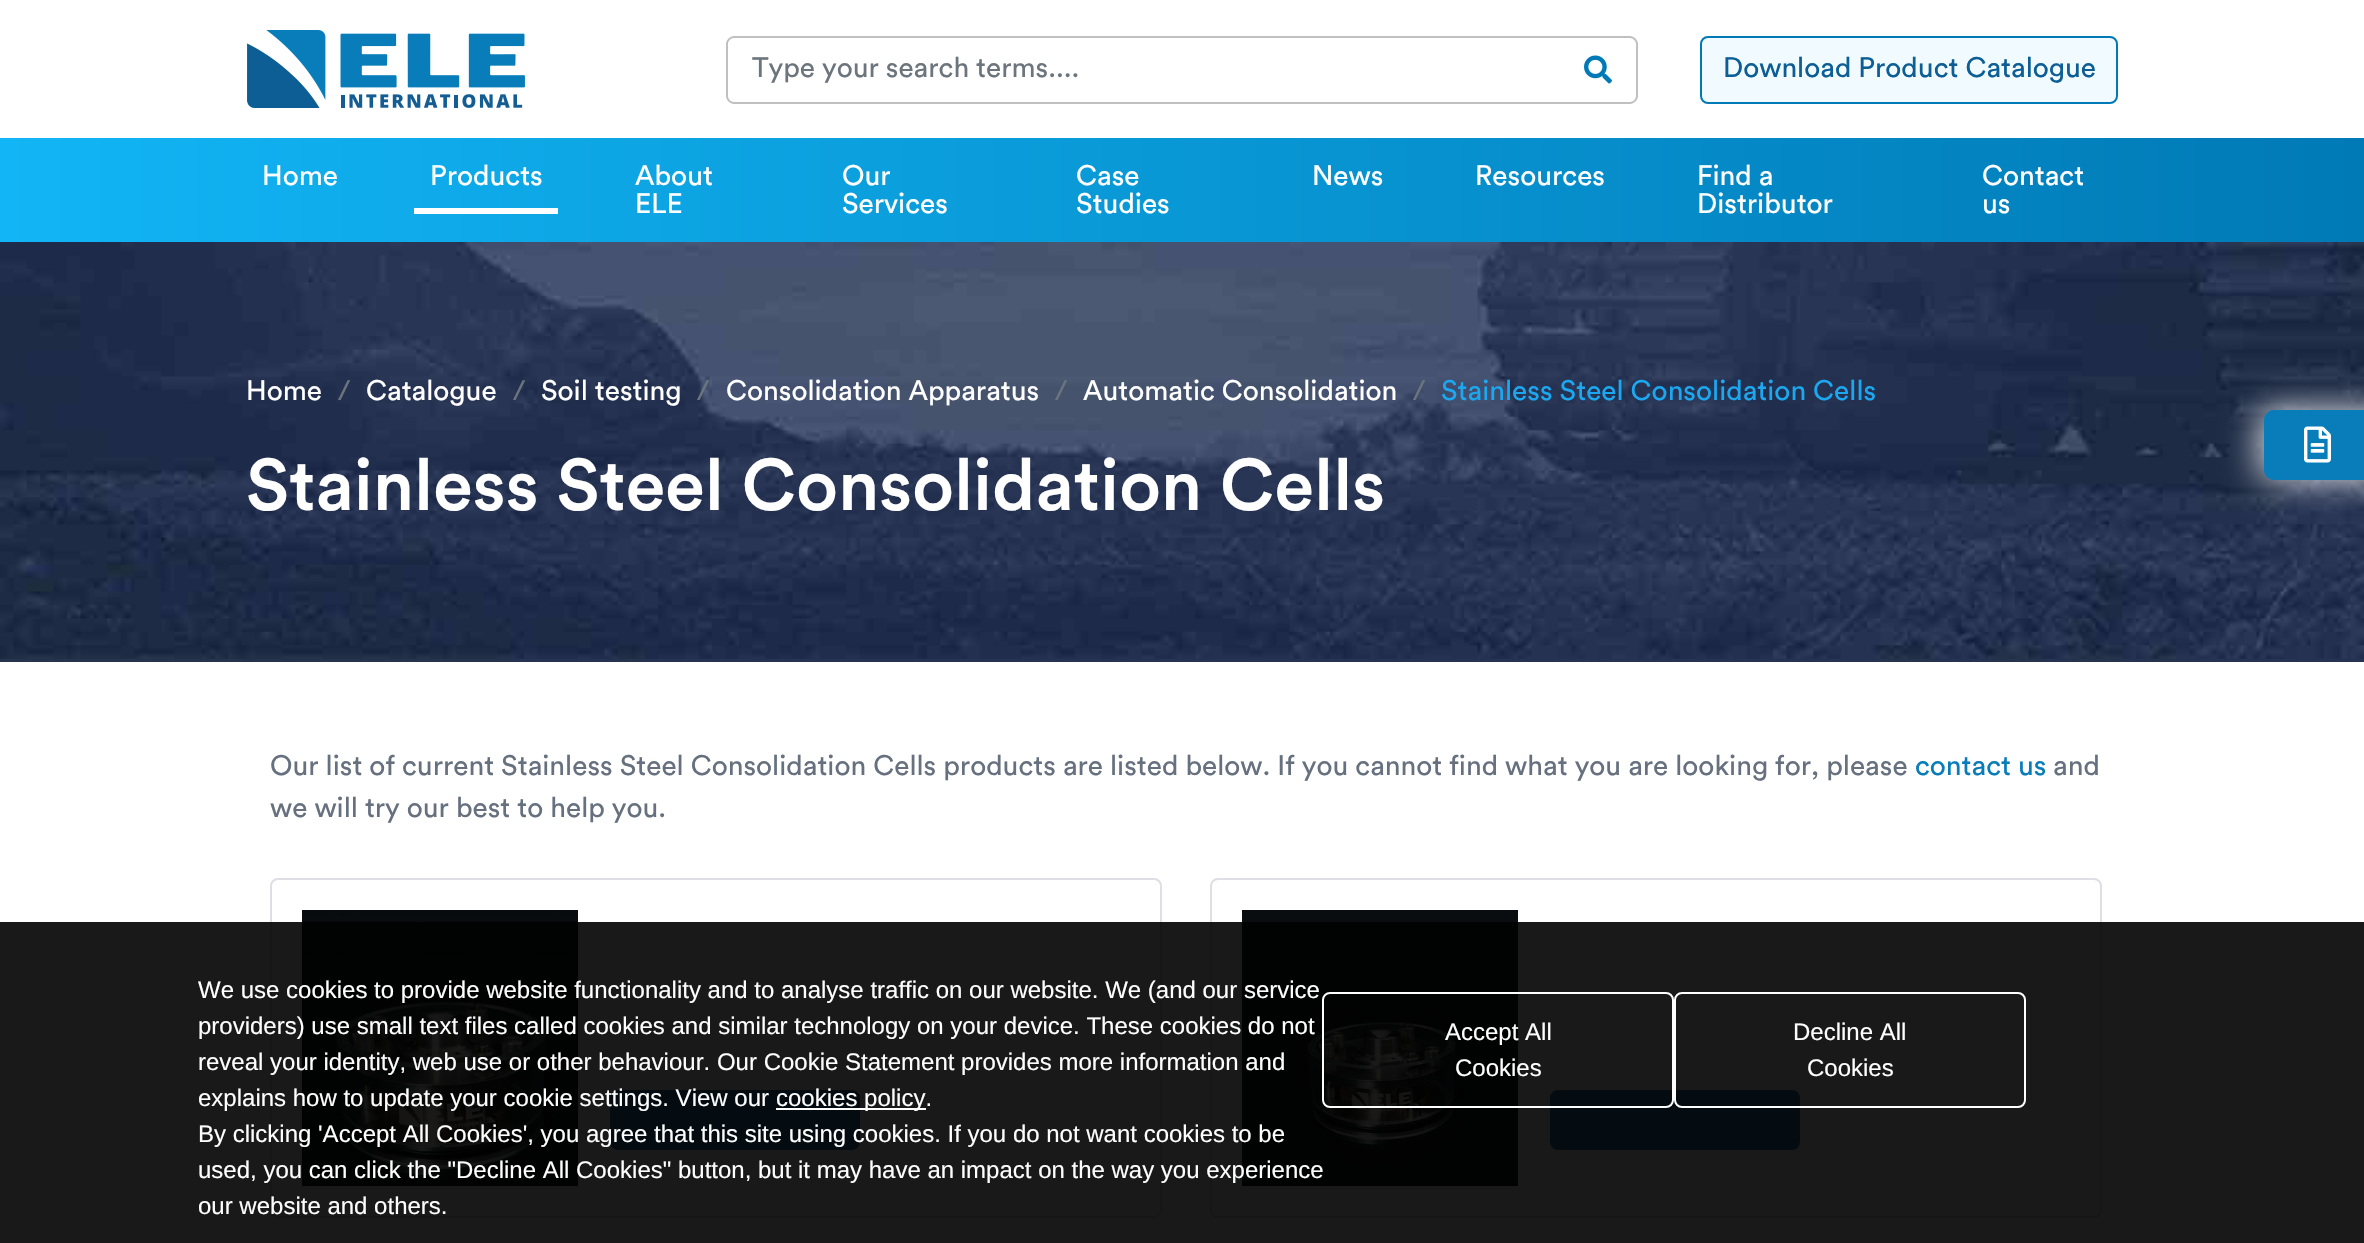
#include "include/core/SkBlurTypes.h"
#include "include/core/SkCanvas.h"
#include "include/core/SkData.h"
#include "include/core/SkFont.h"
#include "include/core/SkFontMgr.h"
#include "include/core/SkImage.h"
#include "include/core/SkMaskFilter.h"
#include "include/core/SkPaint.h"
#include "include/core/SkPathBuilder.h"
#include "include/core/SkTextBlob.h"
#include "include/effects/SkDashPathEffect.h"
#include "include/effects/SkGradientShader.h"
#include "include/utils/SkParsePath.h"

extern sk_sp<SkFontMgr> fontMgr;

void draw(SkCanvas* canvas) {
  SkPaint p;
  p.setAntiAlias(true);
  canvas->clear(SK_ColorWHITE);
  canvas->drawImageRect(SkImages::DeferredFromEncodedData(SkData::MakeFromFileName("images/1.png")), SkRect::MakeLTRB(247, 30, 525, 108), SkSamplingOptions());
  p.setColor(SkColorSetRGB(192, 192, 192));
  canvas->drawPath(SkPathBuilder(SkPathFillType::kEvenOdd).moveTo(1560, 36).lineTo(1630, 36).cubicTo(1634, 36, 1638, 40, 1638, 44).lineTo(1638, 96).cubicTo(1638, 100, 1634, 104, 1630, 104).lineTo(1560, 104).close().moveTo(1560, 38).lineTo(1630, 38).cubicTo(1633, 38, 1636, 41, 1636, 44).lineTo(1636, 96).cubicTo(1636, 99, 1633, 102, 1630, 102).lineTo(1560, 102).close().detach(), p);
  canvas->drawPath(SkPathBuilder(SkPathFillType::kEvenOdd).moveTo(734, 36).lineTo(1562, 36).lineTo(1562, 104).lineTo(734, 104).cubicTo(730, 104, 726, 100, 726, 96).lineTo(726, 44).cubicTo(726, 40, 730, 36, 734, 36).close().moveTo(734, 38).lineTo(1562, 38).lineTo(1562, 102).lineTo(734, 102).cubicTo(731, 102, 728, 99, 728, 96).lineTo(728, 44).cubicTo(728, 41, 731, 38, 734, 38).close().detach(), p);
  canvas->drawImageRect(SkImages::DeferredFromEncodedData(SkData::MakeFromFileName("images/2.png")), SkRect::MakeLTRB(1584, 55, 1612, 84), SkSamplingOptions());
  p.setColor(SkColorSetRGB(240, 250, 255));
  canvas->drawRoundRect(SkRect::MakeLTRB(1701, 37, 2117, 103), 7, 7, p);
  p.setStyle(SkPaint::kStroke_Style);
  p.setStrokeWidth(2);
  p.setColor(SkColorSetRGB(0, 122, 182));
  canvas->drawRoundRect(SkRect::MakeLTRB(1701, 37, 2117, 103), 7, 7, p);
  p.setStyle(SkPaint::kFill_Style);
  {
    const SkColor colors[] = {SkColorSetRGB(18, 181, 245), SkColorSetRGB(0, 122, 182)};
    const float stops[] = {0, 1};
    const SkPoint ends[] = {{0, 190}, {2364, 190}};
    p.setShader(SkGradientShader::MakeLinear(ends, colors, stops, 2, SkTileMode::kClamp));
    p.setAlpha(255);
  }
  canvas->drawRect(SkRect::MakeLTRB(0, 138, 2364, 242), p);
  p.setShader(nullptr);
  p.setColor(SK_ColorWHITE);
  canvas->drawRect(SkRect::MakeLTRB(414, 208, 558, 214), p);
  canvas->drawImageRect(SkImages::DeferredFromEncodedData(SkData::MakeFromFileName("images/3.png")), SkRect::MakeLTRB(0, 242, 2364, 662), SkSamplingOptions());
  p.setColor(SkColorSetARGB(224, 255, 255, 255));
  p.setMaskFilter(SkMaskFilter::MakeBlur(kNormal_SkBlurStyle, 18));
  canvas->drawRoundRect(SkRect::MakeLTRB(2260, 410, 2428, 480), 10, 10, p);
  p.setMaskFilter(nullptr);
  p.setColor(SkColorSetRGB(8, 125, 185));
  canvas->drawPath(SkPathBuilder().moveTo(2274, 410).lineTo(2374, 410).lineTo(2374, 480).lineTo(2274, 480).cubicTo(2268.5f, 480, 2264, 475.5f, 2264, 470).lineTo(2264, 420).cubicTo(2264, 414.5f, 2268.5f, 410, 2274, 410).close().detach(), p);
  canvas->drawImageRect(SkImages::DeferredFromEncodedData(SkData::MakeFromFileName("images/4.png")), SkRect::MakeLTRB(2304, 426, 2331, 463), SkSamplingOptions());
  p.setStyle(SkPaint::kStroke_Style);
  p.setColor(SkColorSetRGB(222, 223, 230));
  canvas->drawRoundRect(SkRect::MakeLTRB(271, 879, 1161, 1217), 7, 7, p);
  canvas->drawImageRect(SkImages::DeferredFromEncodedData(SkData::MakeFromFileName("images/5.png")), SkRect::MakeLTRB(302, 910, 578, 1186), SkSamplingOptions());
  p.setStyle(SkPaint::kFill_Style);
  p.setColor(SkColorSetRGB(36, 119, 179));
  canvas->drawRoundRect(SkRect::MakeLTRB(611, 1091, 859, 1149), 7, 7, p);
  p.setStyle(SkPaint::kStroke_Style);
  canvas->drawRoundRect(SkRect::MakeLTRB(611, 1091, 859, 1149), 7, 7, p);
  p.setColor(SkColorSetRGB(222, 223, 230));
  canvas->drawRoundRect(SkRect::MakeLTRB(1211, 879, 2101, 1217), 7, 7, p);
  canvas->drawImageRect(SkImages::DeferredFromEncodedData(SkData::MakeFromFileName("images/6.png")), SkRect::MakeLTRB(1242, 910, 1518, 1186), SkSamplingOptions());
  p.setStyle(SkPaint::kFill_Style);
  p.setColor(SkColorSetRGB(36, 119, 179));
  canvas->drawRoundRect(SkRect::MakeLTRB(1551, 1091, 1799, 1149), 7, 7, p);
  p.setStyle(SkPaint::kStroke_Style);
  canvas->drawRoundRect(SkRect::MakeLTRB(1551, 1091, 1799, 1149), 7, 7, p);
  p.setStyle(SkPaint::kFill_Style);
  p.setColor(SkColorSetARGB(230, 0, 0, 0));
  canvas->drawRect(SkRect::MakeLTRB(0, 922, 2364, 1243), p);
  p.setColor(SK_ColorWHITE);
  canvas->drawRect(SkRect::MakeLTRB(776, 1108, 926, 1110), p);
  p.setStyle(SkPaint::kStroke_Style);
  canvas->drawRoundRect(SkRect::MakeLTRB(1323, 993, 1673, 1107), 7, 7, p);
  canvas->drawRoundRect(SkRect::MakeLTRB(1675, 993, 2025, 1107), 7, 7, p);
  SkFont font1(fontMgr->matchFamilyStyle("Circular", SkFontStyle::Normal()), 28);
  font1.setSubpixel(true);
  p.setStyle(SkPaint::kFill_Style);
  p.setColor(SkColorSetRGB(108, 117, 125));
  canvas->drawString("Type your search terms....", 752, 77, font1, p);
  p.setColor(SkColorSetRGB(12, 94, 149));
  canvas->drawString("Download Product Catalogue", 1723, 77, font1, p);
  p.setColor(SK_ColorWHITE);
  canvas->drawString("Home", 262, 185, font1, p);
  canvas->drawString("Products", 430, 185, font1, p);
  canvas->drawString("About", 635, 185, font1, p);
  canvas->drawString("ELE", 635, 213, font1, p);
  canvas->drawString("Our", 842, 185, font1, p);
  canvas->drawString("Services", 842, 213, font1, p);
  canvas->drawString("Case", 1076, 185, font1, p);
  canvas->drawString("Studies", 1076, 213, font1, p);
  canvas->drawString("News", 1312, 185, font1, p);
  canvas->drawString("Resources", 1475, 185, font1, p);
  canvas->drawString("Find a", 1697, 185, font1, p);
  canvas->drawString("Distributor", 1697, 213, font1, p);
  canvas->drawString("Contact", 1982, 185, font1, p);
  canvas->drawString("us", 1982, 213, font1, p);
  canvas->drawString("Home", 246, 400, font1, p);
  p.setColor(SkColorSetRGB(108, 117, 125));
  canvas->drawString("/", 338, 400, font1, p);
  p.setColor(SK_ColorWHITE);
  canvas->drawString("Catalogue", 366, 400, font1, p);
  p.setColor(SkColorSetRGB(108, 117, 125));
  canvas->drawString("/", 513, 400, font1, p);
  p.setColor(SK_ColorWHITE);
  canvas->drawString("Soil testing", 541, 400, font1, p);
  p.setColor(SkColorSetRGB(108, 117, 125));
  canvas->drawString("/", 697, 400, font1, p);
  p.setColor(SK_ColorWHITE);
  canvas->drawString("Consolidation Apparatus", 726, 400, font1, p);
  p.setColor(SkColorSetRGB(108, 117, 125));
  canvas->drawString("/", 1055, 400, font1, p);
  p.setColor(SK_ColorWHITE);
  canvas->drawString("Automatic Consolidation", 1083, 400, font1, p);
  p.setColor(SkColorSetRGB(108, 117, 125));
  canvas->drawString("/", 1413, 400, font1, p);
  p.setColor(SkColorSetRGB(28, 168, 240));
  canvas->drawString("Stainless Steel Consolidation Cells", 1441, 400, font1, p);
  SkFont font2(fontMgr->matchFamilyStyle("Circular", SkFontStyle(500, SkFontStyle::kNormal_Width, SkFontStyle::kUpright_Slant)), 72);
  font2.setSubpixel(true);
  p.setColor(SK_ColorWHITE);
  canvas->drawString("Stainless Steel Consolidation Cells", 246, 510, font2, p);
  p.setColor(SkColorSetRGB(102, 112, 126));
  canvas->drawString("Our list of current Stainless Steel Consolidation Cells products are listed below. If you cannot find what you are looking for, please", 270, 775, font1, p);
  p.setColor(SkColorSetRGB(8, 125, 185));
  canvas->drawString("contact us", 1915, 775, font1, p);
  p.setColor(SkColorSetRGB(102, 112, 126));
  canvas->drawString("and", 2053, 775, font1, p);
  canvas->drawString("we will try our best to help you.", 270, 817, font1, p);
  SkFont font3(fontMgr->matchFamilyStyle("Liberation Sans", SkFontStyle::Normal()), 24);
  font3.setSubpixel(true);
  p.setColor(SK_ColorWHITE);
  canvas->drawString("We use cookies to provide website functionality and to analyse traffic on our website. We (and our service", 198, 998, font3, p);
  canvas->drawString("providers) use small text files called cookies and similar technology on your device. These cookies do not", 198, 1034, font3, p);
  canvas->drawString("reveal your identity, web use or other behaviour. Our Cookie Statement provides more information and", 198, 1070, font3, p);
  canvas->drawString("explains how to update your cookie settings. View our", 198, 1106, font3, p);
  canvas->drawString("cookies policy.", 776, 1106, font3, p);
  canvas->drawString("By clicking 'Accept All Cookies', you agree that this site using cookies. If you do not want cookies to be", 198, 1142, font3, p);
  canvas->drawString("used, you can click the \"Decline All Cookies\" button, but it may have an impact on the way you experience", 198, 1178, font3, p);
  canvas->drawString("our website and others.", 198, 1214, font3, p);
  canvas->drawString("Accept All", 1445, 1040, font3, p);
  canvas->drawString("Cookies", 1455, 1076, font3, p);
  canvas->drawString("Decline All", 1793, 1040, font3, p);
  canvas->drawString("Cookies", 1807, 1076, font3, p);
}
